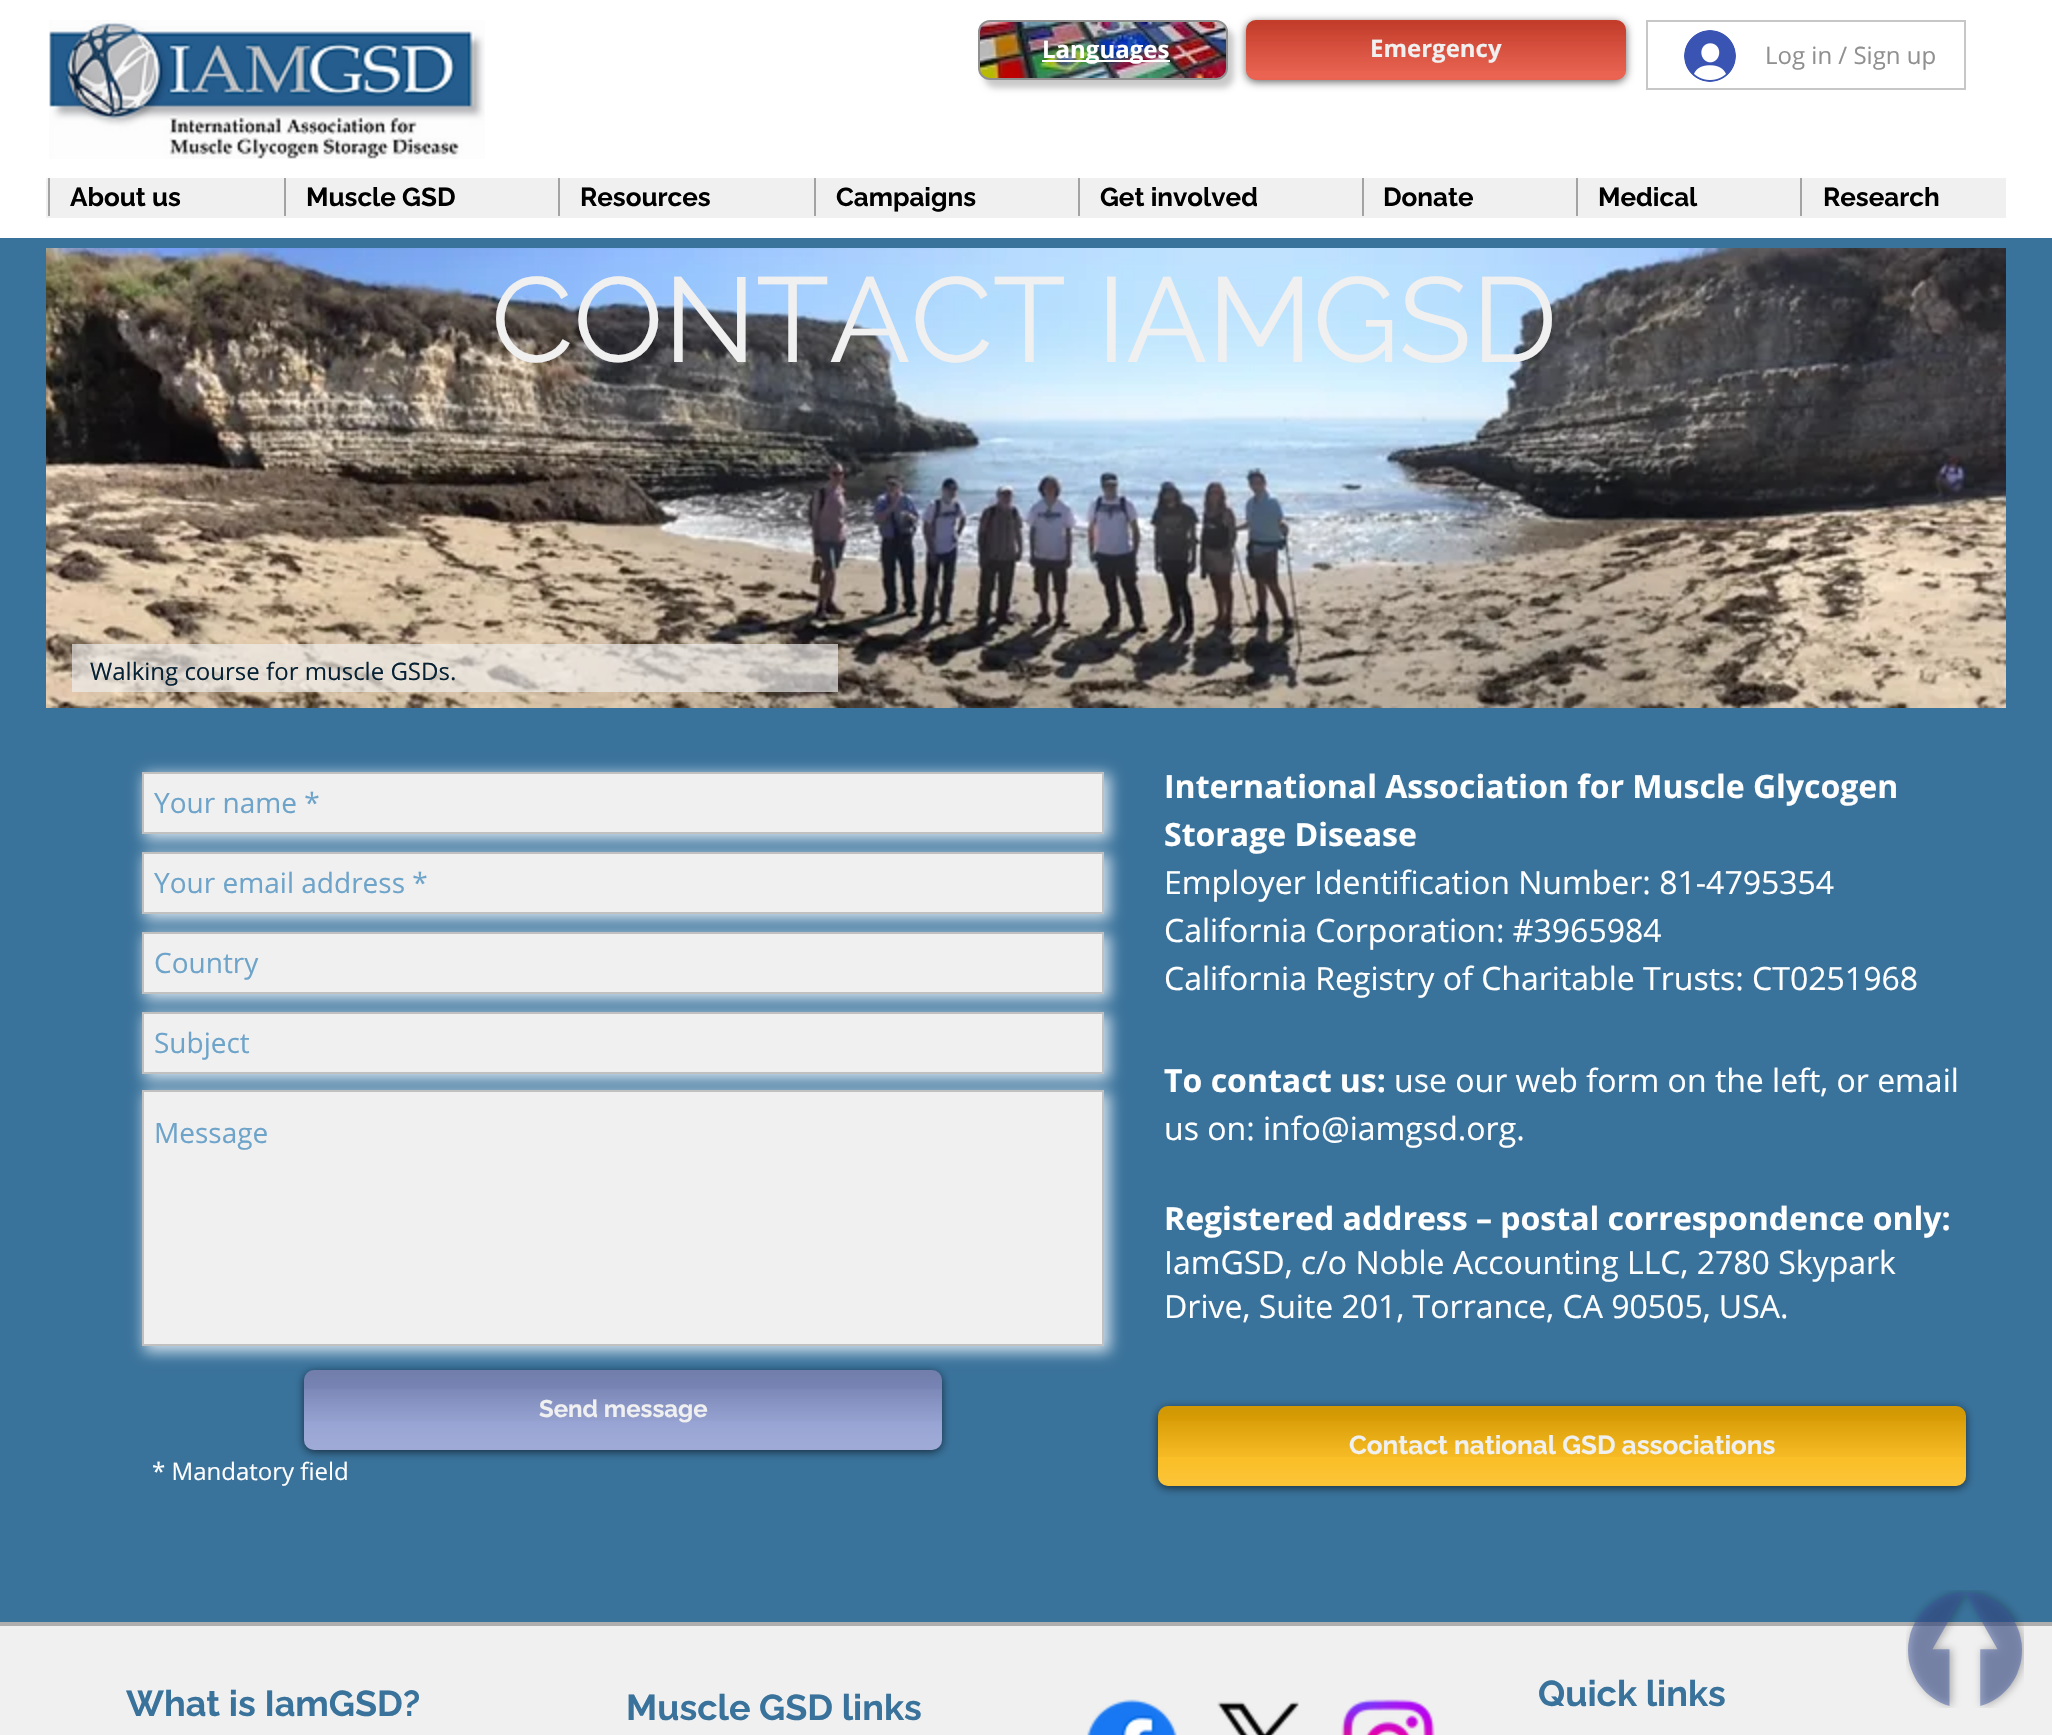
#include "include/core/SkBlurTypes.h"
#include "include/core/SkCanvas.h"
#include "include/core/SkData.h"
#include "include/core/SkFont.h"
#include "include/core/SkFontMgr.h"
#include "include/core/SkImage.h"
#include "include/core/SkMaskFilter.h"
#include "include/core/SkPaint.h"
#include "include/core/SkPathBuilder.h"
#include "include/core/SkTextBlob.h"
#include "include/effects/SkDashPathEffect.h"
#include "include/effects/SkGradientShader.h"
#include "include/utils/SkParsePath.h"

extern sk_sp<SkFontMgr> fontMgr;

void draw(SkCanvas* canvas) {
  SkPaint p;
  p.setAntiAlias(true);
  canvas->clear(SkColorSetRGB(240, 240, 240));
  p.setColor(SK_ColorWHITE);
  canvas->drawRect(SkRect::MakeLTRB(0, 0, 2052, 238), p);
  canvas->drawImageRect(SkImages::DeferredFromEncodedData(SkData::MakeFromFileName("images/1.png")), SkRect::MakeLTRB(49, 20, 485, 159), SkSamplingOptions());
  p.setColor(SkColorSetARGB(54, 0, 0, 0));
  p.setMaskFilter(SkMaskFilter::MakeBlur(kNormal_SkBlurStyle, 3));
  canvas->drawRoundRect(SkRect::MakeLTRB(984, 28, 1234, 88), 12, 12, p);
  p.setMaskFilter(nullptr);
  p.setColor(SkColorSetRGB(144, 144, 144));
  canvas->drawRoundRect(SkRect::MakeLTRB(979, 21, 1227, 79), 11, 11, p);
  p.setStyle(SkPaint::kStroke_Style);
  p.setStrokeWidth(2);
  canvas->drawRoundRect(SkRect::MakeLTRB(979, 21, 1227, 79), 11, 11, p);
  canvas->drawImageRect(SkImages::DeferredFromEncodedData(SkData::MakeFromFileName("images/2.png")), SkRect::MakeLTRB(980, 22, 1226, 78), SkSamplingOptions());
  p.setStyle(SkPaint::kFill_Style);
  p.setColor(SkColorSetARGB(153, 0, 0, 0));
  p.setMaskFilter(SkMaskFilter::MakeBlur(kNormal_SkBlurStyle, 4));
  canvas->drawRoundRect(SkRect::MakeLTRB(1246, 22, 1626, 82), 10, 10, p);
  p.setMaskFilter(nullptr);
  p.setColor(SkColorSetRGB(230, 62, 40));
  canvas->drawRoundRect(SkRect::MakeLTRB(1246, 20, 1626, 80), 10, 10, p);
  canvas->drawImageRect(SkImages::DeferredFromEncodedData(SkData::MakeFromFileName("images/3.png")), SkRect::MakeLTRB(1246, 20, 1626, 71), SkSamplingOptions());
  canvas->drawImageRect(SkImages::DeferredFromEncodedData(SkData::MakeFromFileName("images/4.png")), SkRect::MakeLTRB(1246, 20, 1626, 80), SkSamplingOptions());
  p.setColor(SkColorSetRGB(255, 255, 254));
  canvas->drawRect(SkRect::MakeLTRB(1042, 60, 1170, 62), p);
  p.setStyle(SkPaint::kStroke_Style);
  p.setColor(SkColorSetRGB(199, 199, 199));
  canvas->drawRect(SkRect::MakeLTRB(1647, 21, 1965, 89), p);
  canvas->drawImageRect(SkImages::DeferredFromEncodedData(SkData::MakeFromFileName("images/5.png")), SkRect::MakeLTRB(1684, 30, 1736, 82), SkSamplingOptions());
  p.setStyle(SkPaint::kFill_Style);
  p.setColor(SkColorSetRGB(240, 240, 240));
  canvas->drawRect(SkRect::MakeLTRB(46, 178, 2006, 218), p);
  p.setColor(SkColorSetRGB(163, 163, 163));
  canvas->drawRect(SkRect::MakeLTRB(48, 178, 50, 216), p);
  canvas->drawRect(SkRect::MakeLTRB(284, 178, 286, 216), p);
  canvas->drawRect(SkRect::MakeLTRB(558, 178, 560, 216), p);
  canvas->drawRect(SkRect::MakeLTRB(814, 178, 816, 216), p);
  canvas->drawRect(SkRect::MakeLTRB(1078, 178, 1080, 216), p);
  canvas->drawRect(SkRect::MakeLTRB(1362, 178, 1364, 216), p);
  canvas->drawRect(SkRect::MakeLTRB(1576, 178, 1578, 216), p);
  canvas->drawRect(SkRect::MakeLTRB(1800, 178, 1802, 216), p);
  p.setColor(SkColorSetRGB(57, 114, 155));
  canvas->drawRect(SkRect::MakeLTRB(0, 238, 2052, 1622), p);
  canvas->drawImageRect(SkImages::DeferredFromEncodedData(SkData::MakeFromFileName("images/6.png")), SkRect::MakeLTRB(46, 248, 2006, 708), SkSamplingOptions());
  p.setColor(SkColorSetARGB(166, 240, 240, 240));
  canvas->drawRect(SkRect::MakeLTRB(72, 644, 838, 692), p);
  p.setColor(SkColorSetRGB(209, 224, 235));
  p.setMaskFilter(SkMaskFilter::MakeBlur(kNormal_SkBlurStyle, 7));
  canvas->drawRect(SkRect::MakeLTRB(144, 774, 1110, 840), p);
  p.setMaskFilter(nullptr);
  p.setColor(SkColorSetRGB(240, 240, 240));
  canvas->drawRect(SkRect::MakeLTRB(143, 773, 1103, 833), p);
  p.setStyle(SkPaint::kStroke_Style);
  p.setColor(SkColorSetRGB(192, 192, 192));
  canvas->drawRect(SkRect::MakeLTRB(143, 773, 1103, 833), p);
  p.setStyle(SkPaint::kFill_Style);
  p.setColor(SkColorSetRGB(209, 224, 235));
  p.setMaskFilter(SkMaskFilter::MakeBlur(kNormal_SkBlurStyle, 7));
  canvas->drawRect(SkRect::MakeLTRB(144, 854, 1110, 920), p);
  p.setMaskFilter(nullptr);
  p.setColor(SkColorSetRGB(240, 240, 240));
  canvas->drawRect(SkRect::MakeLTRB(143, 853, 1103, 913), p);
  p.setStyle(SkPaint::kStroke_Style);
  p.setColor(SkColorSetRGB(192, 192, 192));
  canvas->drawRect(SkRect::MakeLTRB(143, 853, 1103, 913), p);
  p.setStyle(SkPaint::kFill_Style);
  p.setColor(SkColorSetRGB(209, 224, 235));
  p.setMaskFilter(SkMaskFilter::MakeBlur(kNormal_SkBlurStyle, 7));
  canvas->drawRect(SkRect::MakeLTRB(144, 934, 1110, 1000), p);
  p.setMaskFilter(nullptr);
  p.setColor(SkColorSetRGB(240, 240, 240));
  canvas->drawRect(SkRect::MakeLTRB(143, 933, 1103, 993), p);
  p.setStyle(SkPaint::kStroke_Style);
  p.setColor(SkColorSetRGB(192, 192, 192));
  canvas->drawRect(SkRect::MakeLTRB(143, 933, 1103, 993), p);
  p.setStyle(SkPaint::kFill_Style);
  p.setColor(SkColorSetRGB(209, 224, 235));
  p.setMaskFilter(SkMaskFilter::MakeBlur(kNormal_SkBlurStyle, 7));
  canvas->drawRect(SkRect::MakeLTRB(144, 1014, 1110, 1080), p);
  p.setMaskFilter(nullptr);
  p.setColor(SkColorSetRGB(240, 240, 240));
  canvas->drawRect(SkRect::MakeLTRB(143, 1013, 1103, 1073), p);
  p.setStyle(SkPaint::kStroke_Style);
  p.setColor(SkColorSetRGB(192, 192, 192));
  canvas->drawRect(SkRect::MakeLTRB(143, 1013, 1103, 1073), p);
  p.setStyle(SkPaint::kFill_Style);
  p.setColor(SkColorSetRGB(209, 224, 235));
  p.setMaskFilter(SkMaskFilter::MakeBlur(kNormal_SkBlurStyle, 7));
  canvas->drawRect(SkRect::MakeLTRB(144, 1092, 1110, 1352), p);
  p.setMaskFilter(nullptr);
  p.setColor(SkColorSetRGB(240, 240, 240));
  canvas->drawRect(SkRect::MakeLTRB(143, 1091, 1103, 1345), p);
  p.setStyle(SkPaint::kStroke_Style);
  p.setColor(SkColorSetRGB(192, 192, 192));
  canvas->drawRect(SkRect::MakeLTRB(143, 1091, 1103, 1345), p);
  p.setStyle(SkPaint::kFill_Style);
  p.setColor(SkColorSetARGB(153, 0, 0, 0));
  p.setMaskFilter(SkMaskFilter::MakeBlur(kNormal_SkBlurStyle, 4));
  canvas->drawRoundRect(SkRect::MakeLTRB(304, 1372, 942, 1452), 10, 10, p);
  p.setMaskFilter(nullptr);
  p.setColor(SkColorSetRGB(136, 150, 205));
  canvas->drawRoundRect(SkRect::MakeLTRB(304, 1370, 942, 1450), 10, 10, p);
  canvas->drawImageRect(SkImages::DeferredFromEncodedData(SkData::MakeFromFileName("images/7.png")), SkRect::MakeLTRB(304, 1370, 942, 1421), SkSamplingOptions());
  canvas->drawImageRect(SkImages::DeferredFromEncodedData(SkData::MakeFromFileName("images/8.png")), SkRect::MakeLTRB(304, 1389, 942, 1450), SkSamplingOptions());
  p.setColor(SkColorSetARGB(153, 0, 0, 0));
  p.setMaskFilter(SkMaskFilter::MakeBlur(kNormal_SkBlurStyle, 4));
  canvas->drawRoundRect(SkRect::MakeLTRB(1158, 1408, 1966, 1488), 10, 10, p);
  p.setMaskFilter(nullptr);
  p.setColor(SkColorSetRGB(250, 181, 5));
  canvas->drawRoundRect(SkRect::MakeLTRB(1158, 1406, 1966, 1486), 10, 10, p);
  canvas->drawImageRect(SkImages::DeferredFromEncodedData(SkData::MakeFromFileName("images/9.png")), SkRect::MakeLTRB(1158, 1406, 1966, 1457), SkSamplingOptions());
  canvas->drawImageRect(SkImages::DeferredFromEncodedData(SkData::MakeFromFileName("images/10.png")), SkRect::MakeLTRB(1158, 1421, 1966, 1486), SkSamplingOptions());
  p.setColor(SkColorSetRGB(174, 174, 174));
  canvas->drawRect(SkRect::MakeLTRB(0, 1622, 2052, 1626), p);
  canvas->drawImageRect(SkImages::DeferredFromEncodedData(SkData::MakeFromFileName("images/11.png")), SkRect::MakeLTRB(1087, 1699, 1177, 1735), SkSamplingOptions());
  canvas->drawImageRect(SkImages::DeferredFromEncodedData(SkData::MakeFromFileName("images/12.png")), SkRect::MakeLTRB(1217, 1701, 1299, 1735), SkSamplingOptions());
  canvas->drawImageRect(SkImages::DeferredFromEncodedData(SkData::MakeFromFileName("images/13.png")), SkRect::MakeLTRB(1341, 1699, 1435, 1735), SkSamplingOptions());
  canvas->drawImageRect(SkImages::DeferredFromEncodedData(SkData::MakeFromFileName("images/14.png")), SkRect::MakeLTRB(1906, 1590, 2024, 1708), SkSamplingOptions());
  SkFont font1(fontMgr->matchFamilyStyle("Open Sans", SkFontStyle::Bold()), 24);
  font1.setSubpixel(true);
  p.setColor(SkColorSetRGB(240, 240, 240));
  canvas->drawString("Emergency", 1370, 57, font1, p);
  p.setColor(SK_ColorWHITE);
  canvas->drawString("Languages", 1042, 58, font1, p);
  SkFont font2(fontMgr->matchFamilyStyle("Open Sans", SkFontStyle::Normal()), 24);
  font2.setSubpixel(true);
  p.setColor(SkColorSetRGB(144, 144, 144));
  canvas->drawString("Log in / Sign up", 1765, 64, font2, p);
  SkFont font3(fontMgr->matchFamilyStyle("Raleway", SkFontStyle::Bold()), 26);
  font3.setSubpixel(true);
  p.setColor(SK_ColorBLACK);
  canvas->drawString("About us", 70, 206, font3, p);
  canvas->drawString("Muscle GSD", 306, 206, font3, p);
  canvas->drawString("Resources", 580, 206, font3, p);
  canvas->drawString("Campaigns", 836, 206, font3, p);
  canvas->drawString("Get involved", 1100, 206, font3, p);
  canvas->drawString("Donate", 1383, 206, font3, p);
  canvas->drawString("Medical", 1598, 206, font3, p);
  canvas->drawString("Research", 1823, 206, font3, p);
  SkFont font4(fontMgr->matchFamilyStyle("Raleway", SkFontStyle::Normal()), 120);
  font4.setSubpixel(true);
  p.setColor(SkColorSetRGB(240, 240, 240));
  canvas->drawString("CONTACT IAMGSD", 491, 362, font4, p);
  p.setColor(SkColorSetRGB(6, 33, 52));
  canvas->drawString("Walking course for muscle GSDs.", 90, 680, font2, p);
  SkFont font5(fontMgr->matchFamilyStyle("Open Sans", SkFontStyle::Normal()), 28);
  font5.setSubpixel(true);
  p.setColor(SkColorSetRGB(110, 164, 202));
  canvas->drawString("Your name *", 154, 813, font5, p);
  canvas->drawString("Your email address *", 154, 893, font5, p);
  canvas->drawString("Country", 154, 973, font5, p);
  canvas->drawString("Subject", 154, 1053, font5, p);
  canvas->drawString("Message", 154, 1143, font5, p);
  SkFont font6(fontMgr->matchFamilyStyle("Raleway", SkFontStyle::Bold()), 24);
  font6.setSubpixel(true);
  p.setColor(SkColorSetRGB(240, 240, 240));
  canvas->drawString("Send message", 539, 1417, font6, p);
  SkFont font7(fontMgr->matchFamilyStyle("Open Sans", SkFontStyle::Bold()), 32);
  font7.setSubpixel(true);
  p.setColor(SK_ColorWHITE);
  canvas->drawString("International Association for Muscle Glycogen", 1164, 798, font7, p);
  canvas->drawString("Storage Disease", 1164, 846, font7, p);
  SkFont font8(fontMgr->matchFamilyStyle("Open Sans", SkFontStyle::Normal()), 32);
  font8.setSubpixel(true);
  canvas->drawString("Employer Identification Number: 81-4795354", 1164, 894, font8, p);
  canvas->drawString("California Corporation: #3965984", 1164, 942, font8, p);
  canvas->drawString("California Registry of Charitable Trusts: CT0251968", 1164, 990, font8, p);
  canvas->drawString("To contact us:", 1164, 1092, font7, p);
  canvas->drawString("use our web form on the left, or email", 1394, 1092, font8, p);
  canvas->drawString("us on: info@iamgsd.org.", 1164, 1140, font8, p);
  canvas->drawString("Registered address – postal correspondence only:", 1164, 1230, font7, p);
  canvas->drawString("IamGSD, c/o Noble Accounting LLC, 2780 Skypark", 1164, 1274, font8, p);
  canvas->drawString("Drive, Suite 201, Torrance, CA 90505, USA.", 1164, 1318, font8, p);
  p.setColor(SkColorSetRGB(240, 240, 240));
  canvas->drawString("Contact national GSD associations", 1349, 1454, font3, p);
  p.setColor(SK_ColorWHITE);
  canvas->drawString("* Mandatory field", 152, 1480, font2, p);
  SkFont font9(fontMgr->matchFamilyStyle("Raleway", SkFontStyle::Bold()), 36);
  font9.setSubpixel(true);
  p.setColor(SkColorSetRGB(57, 114, 155));
  canvas->drawString("What is IamGSD?", 126, 1716, font9, p);
  canvas->drawString("Muscle GSD links", 626, 1720, font9, p);
  canvas->drawString("Quick links", 1538, 1706, font9, p);
}
